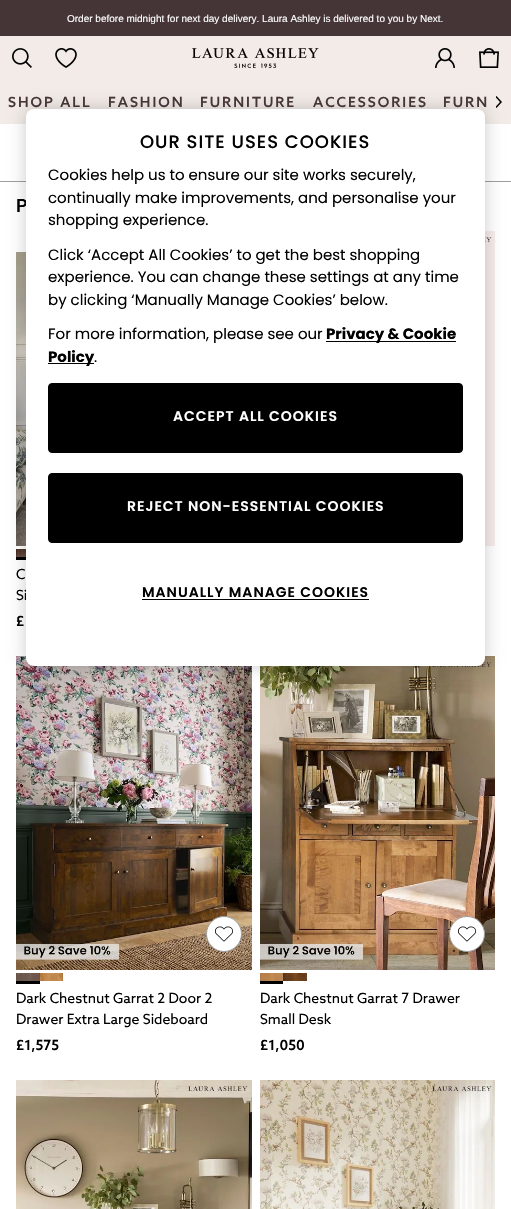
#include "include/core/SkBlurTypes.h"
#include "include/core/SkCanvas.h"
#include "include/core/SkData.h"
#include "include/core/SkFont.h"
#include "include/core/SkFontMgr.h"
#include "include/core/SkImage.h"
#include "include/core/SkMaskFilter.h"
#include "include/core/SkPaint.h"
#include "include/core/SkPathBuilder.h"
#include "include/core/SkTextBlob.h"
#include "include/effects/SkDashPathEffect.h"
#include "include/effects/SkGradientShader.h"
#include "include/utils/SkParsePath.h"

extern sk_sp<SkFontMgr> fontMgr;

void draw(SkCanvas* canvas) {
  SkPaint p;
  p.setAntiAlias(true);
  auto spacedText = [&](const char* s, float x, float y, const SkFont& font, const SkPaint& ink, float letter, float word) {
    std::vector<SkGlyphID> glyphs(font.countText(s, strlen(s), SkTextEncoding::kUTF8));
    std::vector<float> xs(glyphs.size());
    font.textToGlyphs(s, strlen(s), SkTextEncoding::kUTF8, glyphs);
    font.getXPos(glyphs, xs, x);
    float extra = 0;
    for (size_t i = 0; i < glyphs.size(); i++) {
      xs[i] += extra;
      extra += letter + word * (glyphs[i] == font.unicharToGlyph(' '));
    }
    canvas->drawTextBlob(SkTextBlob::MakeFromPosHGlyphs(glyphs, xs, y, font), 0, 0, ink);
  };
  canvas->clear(SK_ColorWHITE);
  p.setColor(SkColorSetRGB(69, 53, 54));
  canvas->drawRect(SkRect::MakeLTRB(0, 0, 511, 36), p);
  p.setColor(SkColorSetRGB(242, 235, 231));
  canvas->drawRect(SkRect::MakeLTRB(0, 36, 511, 124), p);
  canvas->drawImageRect(SkImages::DeferredFromEncodedData(SkData::MakeFromFileName("images/1.png")), SkRect::MakeLTRB(12, 48, 32, 68), SkSamplingOptions());
  canvas->drawImageRect(SkImages::DeferredFromEncodedData(SkData::MakeFromFileName("images/2.png")), SkRect::MakeLTRB(55, 48, 77, 68), SkSamplingOptions());
  canvas->drawImageRect(SkImages::DeferredFromEncodedData(SkData::MakeFromFileName("images/3.png")), SkRect::MakeLTRB(192, 48, 319, 68), SkSamplingOptions());
  canvas->drawImageRect(SkImages::DeferredFromEncodedData(SkData::MakeFromFileName("images/4.png")), SkRect::MakeLTRB(435, 48, 455, 68), SkSamplingOptions());
  canvas->drawImageRect(SkImages::DeferredFromEncodedData(SkData::MakeFromFileName("images/5.png")), SkRect::MakeLTRB(479, 48, 499, 68), SkSamplingOptions());
  canvas->drawImageRect(SkImages::DeferredFromEncodedData(SkData::MakeFromFileName("images/6.png")), SkRect::MakeLTRB(496, 96, 502, 108), SkSamplingOptions());
  p.setColor(SkColorSetRGB(158, 158, 158));
  canvas->drawRect(SkRect::MakeLTRB(0, 181, 511, 182), p);
  canvas->drawImageRect(SkImages::DeferredFromEncodedData(SkData::MakeFromFileName("images/7.png")), SkRect::MakeLTRB(485, 231, 495, 546), SkSamplingOptions());
  canvas->drawImageRect(SkImages::DeferredFromEncodedData(SkData::MakeFromFileName("images/8.png")), SkRect::MakeLTRB(16, 252, 26, 546), SkSamplingOptions());
  p.setColor(SK_ColorBLACK);
  canvas->drawRect(SkRect::MakeLTRB(16, 557, 26, 560), p);
  canvas->drawImageRect(SkImages::DeferredFromEncodedData(SkData::MakeFromFileName("images/9.png")), SkRect::MakeLTRB(16, 549, 26, 557), SkSamplingOptions());
  canvas->drawImageRect(SkImages::DeferredFromEncodedData(SkData::MakeFromFileName("images/10.png")), SkRect::MakeLTRB(16, 656, 252, 970), SkSamplingOptions());
  canvas->drawImageRect(SkImages::DeferredFromEncodedData(SkData::MakeFromFileName("images/14.png")), SkRect::MakeLTRB(260, 656, 495, 970), SkSamplingOptions());
  p.setColor(SkColorSetARGB(51, 0, 0, 0));
  p.setMaskFilter(SkMaskFilter::MakeBlur(kNormal_SkBlurStyle, 9));
  canvas->drawRoundRect(SkRect::MakeLTRB(26, 109, 485, 666), 8, 8, p);
  p.setMaskFilter(nullptr);
  p.setColor(SK_ColorWHITE);
  canvas->drawCircle(224, 934, 17.5f, p);
  p.setStyle(SkPaint::kStroke_Style);
  p.setStrokeWidth(1);
  p.setColor(SkColorSetRGB(158, 158, 158));
  canvas->drawCircle(224, 934, 17.5f, p);
  canvas->drawImageRect(SkImages::DeferredFromEncodedData(SkData::MakeFromFileName("images/11.png")), SkRect::MakeLTRB(215, 926, 233, 942), SkSamplingOptions());
  p.setStyle(SkPaint::kFill_Style);
  p.setColor(SK_ColorBLACK);
  canvas->drawRect(SkRect::MakeLTRB(16, 981, 40, 984), p);
  canvas->drawImageRect(SkImages::DeferredFromEncodedData(SkData::MakeFromFileName("images/12.png")), SkRect::MakeLTRB(16, 973, 40, 981), SkSamplingOptions());
  canvas->drawImageRect(SkImages::DeferredFromEncodedData(SkData::MakeFromFileName("images/13.png")), SkRect::MakeLTRB(40, 973, 63, 981), SkSamplingOptions());
  p.setColor(SK_ColorWHITE);
  canvas->drawCircle(467, 934, 17.5f, p);
  p.setStyle(SkPaint::kStroke_Style);
  p.setColor(SkColorSetRGB(158, 158, 158));
  canvas->drawCircle(467, 934, 17.5f, p);
  canvas->drawImageRect(SkImages::DeferredFromEncodedData(SkData::MakeFromFileName("images/11.png")), SkRect::MakeLTRB(458, 926, 476, 942), SkSamplingOptions());
  p.setStyle(SkPaint::kFill_Style);
  p.setColor(SK_ColorBLACK);
  canvas->drawRect(SkRect::MakeLTRB(260, 981, 283, 984), p);
  canvas->drawImageRect(SkImages::DeferredFromEncodedData(SkData::MakeFromFileName("images/15.png")), SkRect::MakeLTRB(260, 973, 283, 981), SkSamplingOptions());
  canvas->drawImageRect(SkImages::DeferredFromEncodedData(SkData::MakeFromFileName("images/16.png")), SkRect::MakeLTRB(283, 973, 307, 981), SkSamplingOptions());
  canvas->drawImageRect(SkImages::DeferredFromEncodedData(SkData::MakeFromFileName("images/17.png")), SkRect::MakeLTRB(16, 1080, 252, 1209), SkSamplingOptions());
  canvas->drawImageRect(SkImages::DeferredFromEncodedData(SkData::MakeFromFileName("images/18.png")), SkRect::MakeLTRB(260, 1080, 495, 1209), SkSamplingOptions());
  SkFont font1(fontMgr->matchFamilyStyle("Liberation Sans", SkFontStyle::Normal()), 10);
  font1.setSubpixel(true);
  p.setColor(SK_ColorWHITE);
  canvas->drawString("Order before midnight for next day delivery. Laura Ashley is delivered to you by Next.", 67, 22, font1, p);
  SkFont font2(fontMgr->matchFamilyStyle("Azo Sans", SkFontStyle(600, SkFontStyle::kNormal_Width, SkFontStyle::kUpright_Slant)), 14);
  font2.setSubpixel(true);
  p.setColor(SkColorSetRGB(69, 53, 54));
  spacedText("SHOP ALL", 8, 107, font2, p, 2, 0);
  spacedText("FASHION", 108, 107, font2, p, 2, 0);
  spacedText("FURNITURE", 200, 107, font2, p, 2, 0);
  spacedText("ACCESSORIES", 313, 107, font2, p, 2, 0);
  spacedText("FURN", 443, 107, font2, p, 2, 0);
  SkFont font3(fontMgr->matchFamilyStyle("Azo Sans", SkFontStyle(600, SkFontStyle::kNormal_Width, SkFontStyle::kUpright_Slant)), 18);
  font3.setSubpixel(true);
  p.setColor(SK_ColorBLACK);
  canvas->drawString("P", 16, 212, font3, p);
  SkFont font4(fontMgr->matchFamilyStyle("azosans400", SkFontStyle::Normal()), 14);
  font4.setSubpixel(true);
  canvas->drawString("C", 16, 579, font4, p);
  canvas->drawString("Si", 16, 600, font4, p);
  p.setColor(SK_ColorWHITE);
  canvas->drawRoundRect(SkRect::MakeLTRB(26, 109, 485, 666), 8, 8, p);
  SkFont font5(fontMgr->matchFamilyStyle("Poppins", SkFontStyle(600, SkFontStyle::kNormal_Width, SkFontStyle::kUpright_Slant)), 14);
  font5.setSubpixel(true);
  p.setColor(SK_ColorBLACK);
  spacedText("MANUALLY MANAGE COOKIES", 142, 597, font5, p, 1, 0);
  canvas->drawRect(SkRect::MakeLTRB(142, 599, 369, 600), p);
  canvas->drawRoundRect(SkRect::MakeLTRB(48.5f, 473.5f, 462.5f, 542.5f), 3.5f, 3.5f, p);
  p.setStyle(SkPaint::kStroke_Style);
  canvas->drawRoundRect(SkRect::MakeLTRB(48.5f, 473.5f, 462.5f, 542.5f), 3.5f, 3.5f, p);
  p.setStyle(SkPaint::kFill_Style);
  p.setColor(SK_ColorWHITE);
  spacedText("REJECT NON-ESSENTIAL COOKIES", 127, 511, font5, p, 1, 0);
  p.setColor(SK_ColorBLACK);
  canvas->drawRoundRect(SkRect::MakeLTRB(48.5f, 383.5f, 462.5f, 452.5f), 3.5f, 3.5f, p);
  p.setStyle(SkPaint::kStroke_Style);
  canvas->drawRoundRect(SkRect::MakeLTRB(48.5f, 383.5f, 462.5f, 452.5f), 3.5f, 3.5f, p);
  p.setStyle(SkPaint::kFill_Style);
  p.setColor(SK_ColorWHITE);
  spacedText("ACCEPT ALL COOKIES", 173, 421, font5, p, 1, 0);
  SkFont font6(fontMgr->matchFamilyStyle("Poppins", SkFontStyle::Normal()), 15);
  font6.setSubpixel(true);
  p.setColor(SK_ColorBLACK);
  canvas->drawString(".", 94, 362, font6, p);
  canvas->drawRect(SkRect::MakeLTRB(48, 363, 94, 364), p);
  SkFont font7(fontMgr->matchFamilyStyle("Poppins", SkFontStyle::Bold()), 15);
  font7.setSubpixel(true);
  canvas->drawString("Policy", 48, 362, font7, p);
  canvas->drawRect(SkRect::MakeLTRB(326, 341, 456, 342), p);
  canvas->drawString("Privacy & Cookie", 326, 339, font7, p);
  canvas->drawString("For more information, please see our", 48, 339, font6, p);
  canvas->drawString("by clicking ‘Manually Manage Cookies’ below.", 48, 305, font6, p);
  canvas->drawString("experience. You can change these settings at any time", 48, 282, font6, p);
  canvas->drawString("Click ‘Accept All Cookies’ to get the best shopping", 48, 260, font6, p);
  canvas->drawString("shopping experience.", 48, 225, font6, p);
  canvas->drawString("continually make improvements, and personalise your", 48, 203, font6, p);
  canvas->drawString("Cookies help us to ensure our site works securely,", 48, 180, font6, p);
  SkFont font8(fontMgr->matchFamilyStyle("Poppins", SkFontStyle(500, SkFontStyle::kNormal_Width, SkFontStyle::kUpright_Slant)), 18);
  font8.setSubpixel(true);
  spacedText("OUR SITE USES COOKIES", 140, 148, font8, p, 1, 0);
  canvas->drawString("£", 16, 626, font2, p);
  canvas->drawString("Dark Chestnut Garrat 2 Door 2", 16, 1003, font4, p);
  canvas->drawString("Drawer Extra Large Sideboard", 16, 1024, font4, p);
  canvas->drawString("£1,575", 16, 1050, font2, p);
  canvas->drawString("Dark Chestnut Garrat 7 Drawer", 260, 1003, font4, p);
  canvas->drawString("Small Desk", 260, 1024, font4, p);
  canvas->drawString("£1,050", 260, 1050, font2, p);
}
